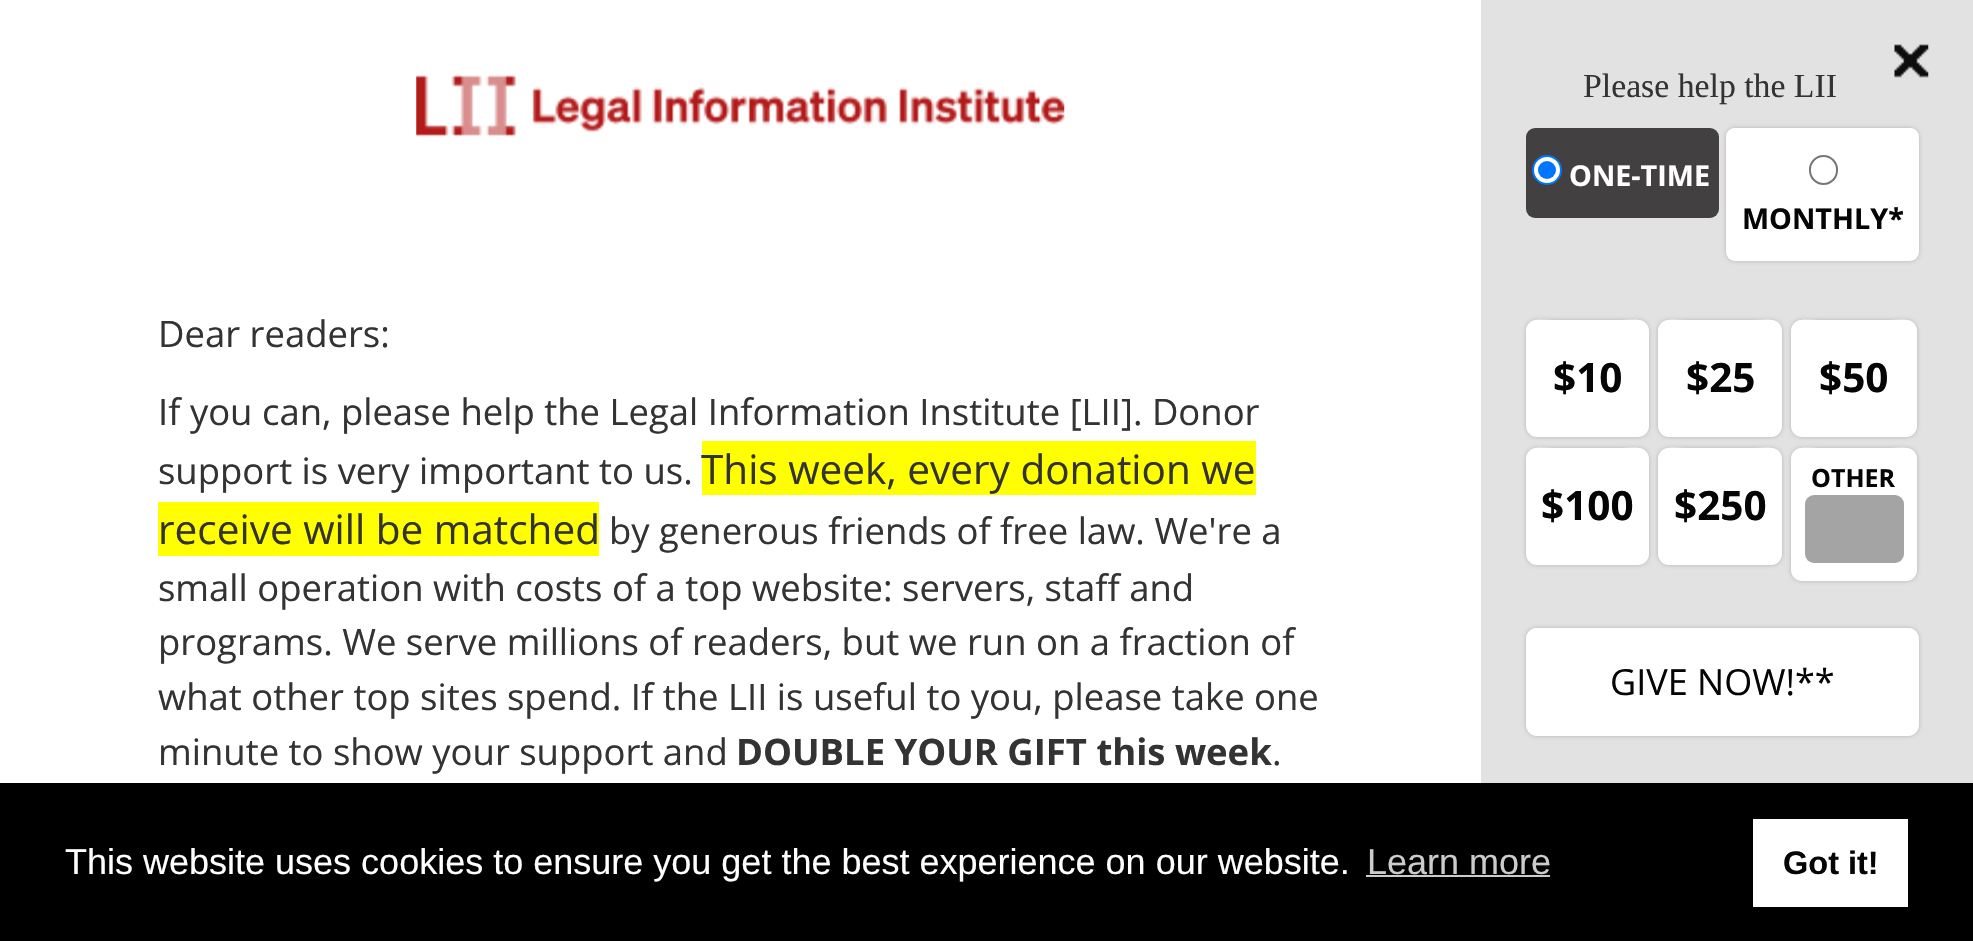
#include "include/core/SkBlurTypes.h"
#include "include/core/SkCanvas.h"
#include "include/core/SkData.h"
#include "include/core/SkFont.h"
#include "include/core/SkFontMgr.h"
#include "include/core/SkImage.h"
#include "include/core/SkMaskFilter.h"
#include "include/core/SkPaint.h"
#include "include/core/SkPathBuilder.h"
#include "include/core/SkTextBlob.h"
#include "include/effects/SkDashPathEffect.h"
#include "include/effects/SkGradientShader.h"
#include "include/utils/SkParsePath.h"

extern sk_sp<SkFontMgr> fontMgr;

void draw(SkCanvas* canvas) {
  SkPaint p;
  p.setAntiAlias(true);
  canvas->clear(SK_ColorWHITE);
  canvas->drawImageRect(SkImages::DeferredFromEncodedData(SkData::MakeFromFileName("images/1.png")), SkRect::MakeLTRB(416, 75, 1065, 137), SkSamplingOptions());
  p.setColor(SkColorSetRGB(255, 255, 0));
  canvas->drawRect(SkRect::MakeLTRB(702, 441, 1256, 495), p);
  canvas->drawRect(SkRect::MakeLTRB(158, 502, 599, 556), p);
  p.setColor(SkColorSetRGB(226, 226, 226));
  canvas->drawRect(SkRect::MakeLTRB(1481, 0, 1973, 783), p);
  canvas->drawImageRect(SkImages::DeferredFromEncodedData(SkData::MakeFromFileName("images/2.png")), SkRect::MakeLTRB(1894, 44, 1929, 78), SkSamplingOptions());
  p.setColor(SkColorSetRGB(66, 64, 64));
  canvas->drawRoundRect(SkRect::MakeLTRB(1526, 128, 1719, 218), 9, 9, p);
  p.setColor(SK_ColorWHITE);
  canvas->drawCircle(1547, 170, 14, p);
  p.setStyle(SkPaint::kStroke_Style);
  p.setStrokeWidth(2);
  p.setColor(SkColorSetRGB(0, 117, 255));
  canvas->drawCircle(1547, 170, 14, p);
  p.setStyle(SkPaint::kFill_Style);
  canvas->drawCircle(1547, 170, 9, p);
  p.setColor(SkColorSetARGB(51, 0, 0, 0));
  p.setMaskFilter(SkMaskFilter::MakeBlur(kNormal_SkBlurStyle, 2));
  canvas->drawRoundRect(SkRect::MakeLTRB(1726, 128, 1919, 261), 9, 9, p);
  p.setMaskFilter(nullptr);
  p.setColor(SK_ColorWHITE);
  canvas->drawRoundRect(SkRect::MakeLTRB(1726, 128, 1919, 261), 9, 9, p);
  p.setColor(SkColorSetARGB(191, 255, 255, 255));
  canvas->drawPath(SkPathBuilder().moveTo(1734, 130).lineTo(1911, 130).cubicTo(1915, 130, 1919, 134, 1919, 139).lineTo(1919, 137).cubicTo(1919, 132, 1915, 128, 1910, 128).lineTo(1735, 128).cubicTo(1730, 128, 1726, 132, 1726, 137).lineTo(1726, 139).cubicTo(1726, 134, 1730, 130, 1734, 130).close().detach(), p);
  p.setStyle(SkPaint::kStroke_Style);
  p.setColor(SkColorSetRGB(118, 118, 118));
  canvas->drawRoundRect(SkRect::MakeLTRB(1810, 156, 1837, 184), 13.5f, 13.5f, p);
  p.setStyle(SkPaint::kFill_Style);
  p.setColor(SkColorSetARGB(51, 0, 0, 0));
  p.setMaskFilter(SkMaskFilter::MakeBlur(kNormal_SkBlurStyle, 2));
  canvas->drawRoundRect(SkRect::MakeLTRB(1526, 320, 1649, 437), 11, 11, p);
  p.setMaskFilter(nullptr);
  p.setColor(SK_ColorWHITE);
  canvas->drawRoundRect(SkRect::MakeLTRB(1526, 320, 1649, 437), 11, 11, p);
  p.setColor(SkColorSetARGB(191, 255, 255, 255));
  canvas->drawPath(SkPathBuilder().moveTo(1538, 322).lineTo(1637, 322).cubicTo(1644, 322, 1649, 327, 1649, 334).cubicTo(1649, 316, 1635, 320, 1621, 320).lineTo(1554, 320).cubicTo(1540, 320, 1526, 316, 1526, 334).cubicTo(1526, 327, 1531, 322, 1538, 322).close().detach(), p);
  p.setColor(SkColorSetARGB(51, 0, 0, 0));
  p.setMaskFilter(SkMaskFilter::MakeBlur(kNormal_SkBlurStyle, 2));
  canvas->drawRoundRect(SkRect::MakeLTRB(1658, 320, 1782, 437), 11, 11, p);
  p.setMaskFilter(nullptr);
  p.setColor(SK_ColorWHITE);
  canvas->drawRoundRect(SkRect::MakeLTRB(1658, 320, 1782, 437), 11, 11, p);
  p.setColor(SkColorSetARGB(191, 255, 255, 255));
  canvas->drawPath(SkPathBuilder().moveTo(1670, 322).lineTo(1770, 322).cubicTo(1777, 322, 1782, 327, 1782, 334).cubicTo(1782, 316, 1768, 320, 1754, 320).lineTo(1686, 320).cubicTo(1672, 320, 1658, 316, 1658, 334).cubicTo(1658, 327, 1664, 322, 1670, 322).close().detach(), p);
  p.setColor(SkColorSetARGB(51, 0, 0, 0));
  p.setMaskFilter(SkMaskFilter::MakeBlur(kNormal_SkBlurStyle, 2));
  canvas->drawRoundRect(SkRect::MakeLTRB(1791, 320, 1917, 437), 11, 11, p);
  p.setMaskFilter(nullptr);
  p.setColor(SK_ColorWHITE);
  canvas->drawRoundRect(SkRect::MakeLTRB(1791, 320, 1917, 437), 11, 11, p);
  p.setColor(SkColorSetARGB(191, 255, 255, 255));
  canvas->drawPath(SkPathBuilder().moveTo(1803, 322).lineTo(1905, 322).cubicTo(1912, 322, 1917, 327, 1917, 334).cubicTo(1917, 316, 1903, 320, 1889, 320).lineTo(1819, 320).cubicTo(1805, 320, 1791, 316, 1791, 334).cubicTo(1791, 327, 1796, 322, 1803, 322).close().detach(), p);
  p.setColor(SkColorSetARGB(51, 0, 0, 0));
  p.setMaskFilter(SkMaskFilter::MakeBlur(kNormal_SkBlurStyle, 2));
  canvas->drawRoundRect(SkRect::MakeLTRB(1791, 448, 1917, 581), 11, 11, p);
  p.setMaskFilter(nullptr);
  p.setColor(SK_ColorWHITE);
  canvas->drawRoundRect(SkRect::MakeLTRB(1791, 448, 1917, 581), 11, 11, p);
  p.setColor(SkColorSetARGB(191, 255, 255, 255));
  canvas->drawPath(SkPathBuilder().moveTo(1802, 450).lineTo(1906, 450).cubicTo(1912, 450, 1917, 455, 1917, 461).cubicTo(1917, 444, 1901, 448, 1889, 448).lineTo(1819, 448).cubicTo(1807, 448, 1791, 444, 1791, 461).cubicTo(1791, 455, 1796, 450, 1802, 450).close().detach(), p);
  p.setColor(SkColorSetRGB(164, 164, 164));
  canvas->drawRoundRect(SkRect::MakeLTRB(1805, 495, 1904, 563), 9, 9, p);
  p.setColor(SkColorSetARGB(51, 0, 0, 0));
  p.setMaskFilter(SkMaskFilter::MakeBlur(kNormal_SkBlurStyle, 2));
  canvas->drawRoundRect(SkRect::MakeLTRB(1526, 448, 1649, 565), 11, 11, p);
  p.setMaskFilter(nullptr);
  p.setColor(SK_ColorWHITE);
  canvas->drawRoundRect(SkRect::MakeLTRB(1526, 448, 1649, 565), 11, 11, p);
  p.setColor(SkColorSetARGB(191, 255, 255, 255));
  canvas->drawPath(SkPathBuilder().moveTo(1538, 450).lineTo(1637, 450).cubicTo(1644, 450, 1649, 455, 1649, 462).cubicTo(1649, 444, 1635, 448, 1621, 448).lineTo(1554, 448).cubicTo(1540, 448, 1526, 444, 1526, 462).cubicTo(1526, 455, 1531, 450, 1538, 450).close().detach(), p);
  p.setColor(SkColorSetARGB(51, 0, 0, 0));
  p.setMaskFilter(SkMaskFilter::MakeBlur(kNormal_SkBlurStyle, 2));
  canvas->drawRoundRect(SkRect::MakeLTRB(1658, 448, 1782, 565), 11, 11, p);
  p.setMaskFilter(nullptr);
  p.setColor(SK_ColorWHITE);
  canvas->drawRoundRect(SkRect::MakeLTRB(1658, 448, 1782, 565), 11, 11, p);
  p.setColor(SkColorSetARGB(191, 255, 255, 255));
  canvas->drawPath(SkPathBuilder().moveTo(1670, 450).lineTo(1770, 450).cubicTo(1777, 450, 1782, 455, 1782, 462).cubicTo(1782, 444, 1768, 448, 1754, 448).lineTo(1686, 448).cubicTo(1672, 448, 1658, 444, 1658, 462).cubicTo(1658, 455, 1664, 450, 1670, 450).close().detach(), p);
  p.setColor(SkColorSetARGB(51, 0, 0, 0));
  p.setMaskFilter(SkMaskFilter::MakeBlur(kNormal_SkBlurStyle, 2));
  canvas->drawRoundRect(SkRect::MakeLTRB(1526, 628, 1919, 736), 11, 11, p);
  p.setMaskFilter(nullptr);
  p.setColor(SK_ColorWHITE);
  canvas->drawRoundRect(SkRect::MakeLTRB(1526, 628, 1919, 736), 11, 11, p);
  p.setColor(SkColorSetARGB(191, 255, 255, 255));
  canvas->drawPath(SkPathBuilder().moveTo(1536, 630).lineTo(1908, 630).cubicTo(1914, 630, 1919, 635, 1919, 641).cubicTo(1919, 635, 1917, 630, 1910, 628).lineTo(1535, 628).cubicTo(1528, 630, 1526, 635, 1526, 641).cubicTo(1526, 635, 1530, 630, 1536, 630).close().detach(), p);
  p.setColor(SK_ColorBLACK);
  canvas->drawRect(SkRect::MakeLTRB(0, 783, 1973, 941), p);
  p.setColor(SkColorSetRGB(204, 204, 204));
  canvas->drawRect(SkRect::MakeLTRB(1366, 875, 1550, 877), p);
  p.setColor(SK_ColorWHITE);
  canvas->drawRect(SkRect::MakeLTRB(1753, 819, 1908, 907), p);
  SkFont font1(fontMgr->matchFamilyStyle("Open Sans", SkFontStyle::Normal()), 36.45f);
  font1.setSubpixel(true);
  p.setColor(SkColorSetRGB(51, 51, 51));
  canvas->drawString("Dear readers:", 158, 347, font1, p);
  canvas->drawString("If you can, please help the Legal Information Institute [LII]. Donor", 158, 425, font1, p);
  canvas->drawString("support is very important to us.", 158, 484, font1, p);
  SkFont font2(fontMgr->matchFamilyStyle("Open Sans", SkFontStyle::Normal()), 40.5f);
  font2.setSubpixel(true);
  canvas->drawString("This week, every donation we", 701, 484, font2, p);
  canvas->drawString("receive will be matched", 158, 544, font2, p);
  canvas->drawString("by generous friends of free law. We're a", 609, 544, font1, p);
  canvas->drawString("small operation with costs of a top website: servers, staff and", 158, 601, font1, p);
  canvas->drawString("programs. We serve millions of readers, but we run on a fraction of", 158, 655, font1, p);
  canvas->drawString("what other top sites spend. If the LII is useful to you, please take one", 158, 710, font1, p);
  canvas->drawString("minute to show your support and", 158, 765, font1, p);
  SkFont font3(fontMgr->matchFamilyStyle("Open Sans", SkFontStyle::Bold()), 36.45f);
  font3.setSubpixel(true);
  canvas->drawString("DOUBLE YOUR GIFT this week", 736, 765, font3, p);
  canvas->drawString(".", 1272, 765, font1, p);
  SkFont font4(fontMgr->matchFamilyStyle("Liberation Serif", SkFontStyle::Normal()), 33.75f);
  font4.setSubpixel(true);
  canvas->drawString("Please help the LII", 1583, 97, font4, p);
  SkFont font5(fontMgr->matchFamilyStyle("Open Sans", SkFontStyle::Bold()), 28.75f);
  font5.setSubpixel(true);
  p.setColor(SK_ColorWHITE);
  canvas->drawString("ONE-TIME", 1569, 186, font5, p);
  p.setColor(SkColorSetRGB(5, 5, 5));
  canvas->drawString("MONTHLY*", 1742, 229, font5, p);
  SkFont font6(fontMgr->matchFamilyStyle("Open Sans", SkFontStyle::Bold()), 40.5f);
  font6.setSubpixel(true);
  canvas->drawString("$10", 1553, 392, font6, p);
  canvas->drawString("$25", 1686, 392, font6, p);
  canvas->drawString("$50", 1819, 392, font6, p);
  SkFont font7(fontMgr->matchFamilyStyle("Open Sans", SkFontStyle::Bold()), 25);
  font7.setSubpixel(true);
  canvas->drawString("OTHER", 1811, 487, font7, p);
  canvas->drawString("$100", 1541, 520, font6, p);
  canvas->drawString("$250", 1674, 520, font6, p);
  SkFont font8(fontMgr->matchFamilyStyle("Open Sans", SkFontStyle::Normal()), 36);
  font8.setSubpixel(true);
  canvas->drawString("GIVE NOW!**", 1610, 695, font8, p);
  SkFont font9(fontMgr->matchFamilyStyle("Liberation Sans", SkFontStyle::Normal()), 36);
  font9.setSubpixel(true);
  p.setColor(SK_ColorWHITE);
  canvas->drawString("This website uses cookies to ensure you get the best experience on our website.", 65, 874, font9, p);
  p.setColor(SkColorSetRGB(204, 204, 204));
  canvas->drawString("Learn more", 1367, 874, font9, p);
  SkFont font10(fontMgr->matchFamilyStyle("Liberation Sans", SkFontStyle::Bold()), 32.5f);
  font10.setSubpixel(true);
  p.setColor(SkColorSetRGB(5, 5, 5));
  canvas->drawString("Got it!", 1783, 874, font10, p);
}
